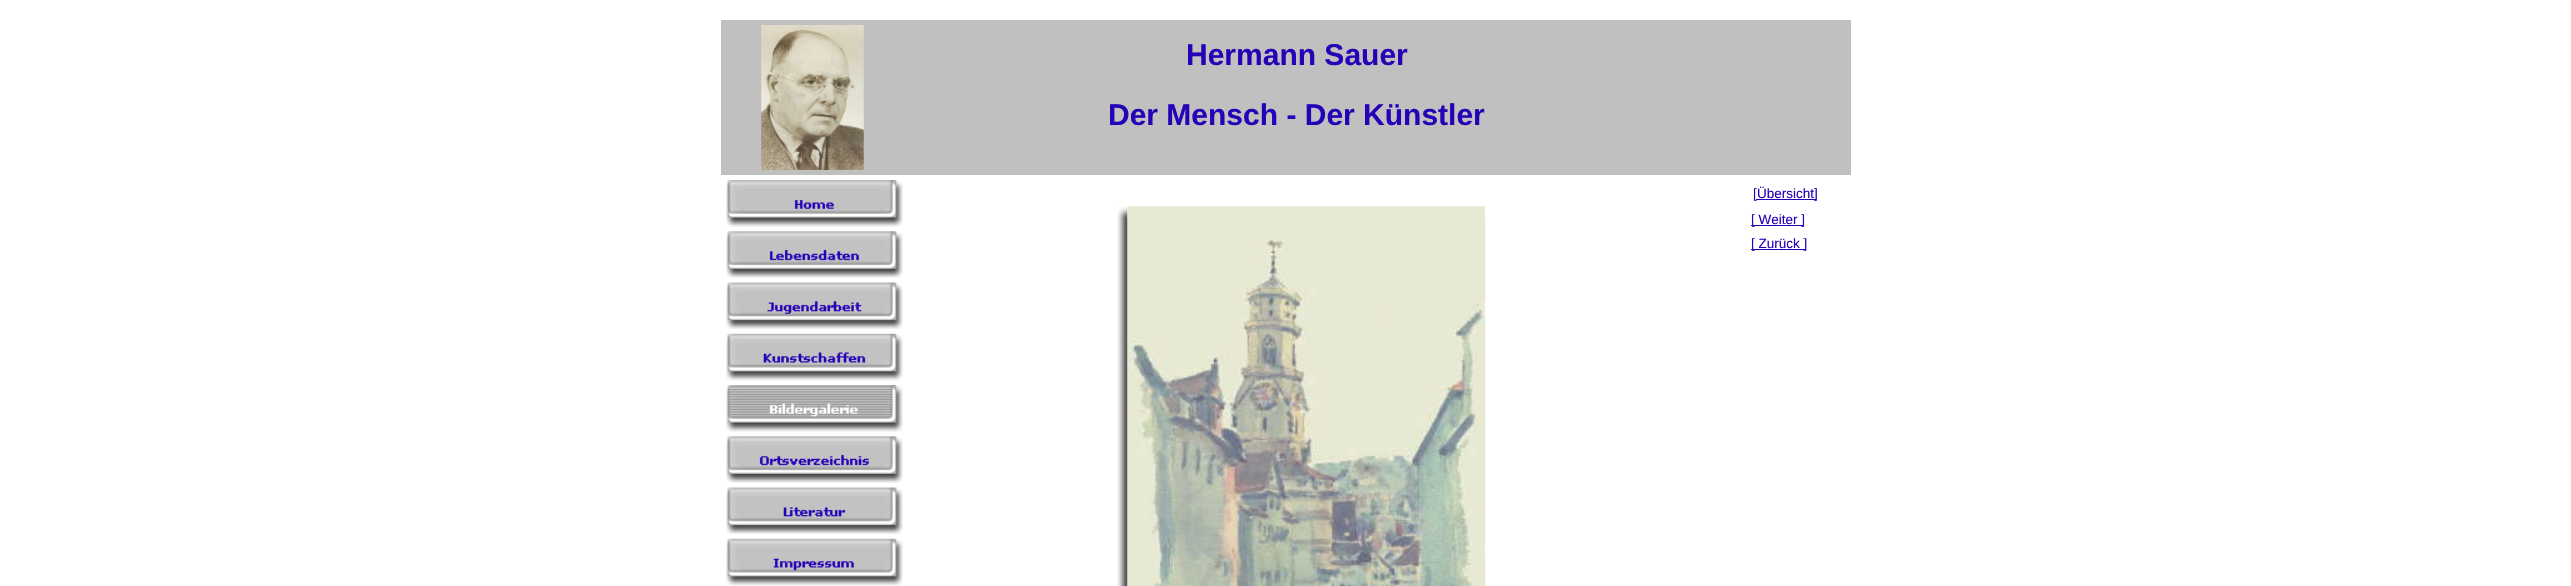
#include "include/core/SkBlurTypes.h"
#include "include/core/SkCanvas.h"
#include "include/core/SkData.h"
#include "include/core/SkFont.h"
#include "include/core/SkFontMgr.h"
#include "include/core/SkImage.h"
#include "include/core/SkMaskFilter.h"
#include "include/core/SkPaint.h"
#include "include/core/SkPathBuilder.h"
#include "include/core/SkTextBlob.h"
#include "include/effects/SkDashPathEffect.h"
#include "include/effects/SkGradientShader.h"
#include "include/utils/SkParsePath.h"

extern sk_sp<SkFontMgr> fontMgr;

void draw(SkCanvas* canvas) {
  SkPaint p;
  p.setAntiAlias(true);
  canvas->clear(SK_ColorWHITE);
  p.setColor(SkColorSetRGB(192, 192, 192));
  canvas->drawRect(SkRect::MakeLTRB(721, 20, 1851, 175), p);
  canvas->drawImageRect(SkImages::DeferredFromEncodedData(SkData::MakeFromFileName("images/1.png")), SkRect::MakeLTRB(761, 25, 864, 170), SkSamplingOptions());
  canvas->drawImageRect(SkImages::DeferredFromEncodedData(SkData::MakeFromFileName("images/2.png")), SkRect::MakeLTRB(726, 180, 903, 227), SkSamplingOptions());
  canvas->drawImageRect(SkImages::DeferredFromEncodedData(SkData::MakeFromFileName("images/3.png")), SkRect::MakeLTRB(726, 231, 903, 278), SkSamplingOptions());
  canvas->drawImageRect(SkImages::DeferredFromEncodedData(SkData::MakeFromFileName("images/4.png")), SkRect::MakeLTRB(726, 282, 903, 329), SkSamplingOptions());
  canvas->drawImageRect(SkImages::DeferredFromEncodedData(SkData::MakeFromFileName("images/5.png")), SkRect::MakeLTRB(726, 333, 903, 381), SkSamplingOptions());
  canvas->drawImageRect(SkImages::DeferredFromEncodedData(SkData::MakeFromFileName("images/6.png")), SkRect::MakeLTRB(726, 385, 903, 432), SkSamplingOptions());
  canvas->drawImageRect(SkImages::DeferredFromEncodedData(SkData::MakeFromFileName("images/7.png")), SkRect::MakeLTRB(726, 436, 903, 483), SkSamplingOptions());
  canvas->drawImageRect(SkImages::DeferredFromEncodedData(SkData::MakeFromFileName("images/8.png")), SkRect::MakeLTRB(726, 487, 903, 534), SkSamplingOptions());
  canvas->drawImageRect(SkImages::DeferredFromEncodedData(SkData::MakeFromFileName("images/9.png")), SkRect::MakeLTRB(726, 538, 903, 586), SkSamplingOptions());
  canvas->drawImageRect(SkImages::DeferredFromEncodedData(SkData::MakeFromFileName("images/10.png")), SkRect::MakeLTRB(1117, 207, 1128, 586), SkSamplingOptions());
  canvas->drawImageRect(SkImages::DeferredFromEncodedData(SkData::MakeFromFileName("images/11.png")), SkRect::MakeLTRB(1127, 206, 1485, 586), SkSamplingOptions());
  canvas->drawImageRect(SkImages::DeferredFromEncodedData(SkData::MakeFromFileName("images/12.png")), SkRect::MakeLTRB(1485, 219, 1486, 586), SkSamplingOptions());
  p.setColor(SkColorSetRGB(38, 2, 183));
  canvas->drawRect(SkRect::MakeLTRB(1756, 199, 1816, 200), p);
  canvas->drawRect(SkRect::MakeLTRB(1751, 225, 1804, 226), p);
  canvas->drawRect(SkRect::MakeLTRB(1751, 249, 1806, 250), p);
  SkFont font1(fontMgr->matchFamilyStyle("Liberation Sans", SkFontStyle::Bold()), 30);
  font1.setSubpixel(true);
  canvas->drawString("Hermann Sauer", 1186, 65, font1, p);
  canvas->drawString("Der Mensch - Der Künstler", 1108, 125, font1, p);
  SkFont font2(fontMgr->matchFamilyStyle("Liberation Sans", SkFontStyle::Normal()), 13.5f);
  font2.setSubpixel(true);
  canvas->drawString("[", 1753, 198, font2, p);
  canvas->drawString("Übersicht]", 1757, 198, font2, p);
  canvas->drawString("[ Weiter ]", 1751, 224, font2, p);
  canvas->drawString("[ Zurück ]", 1751, 248, font2, p);
}
